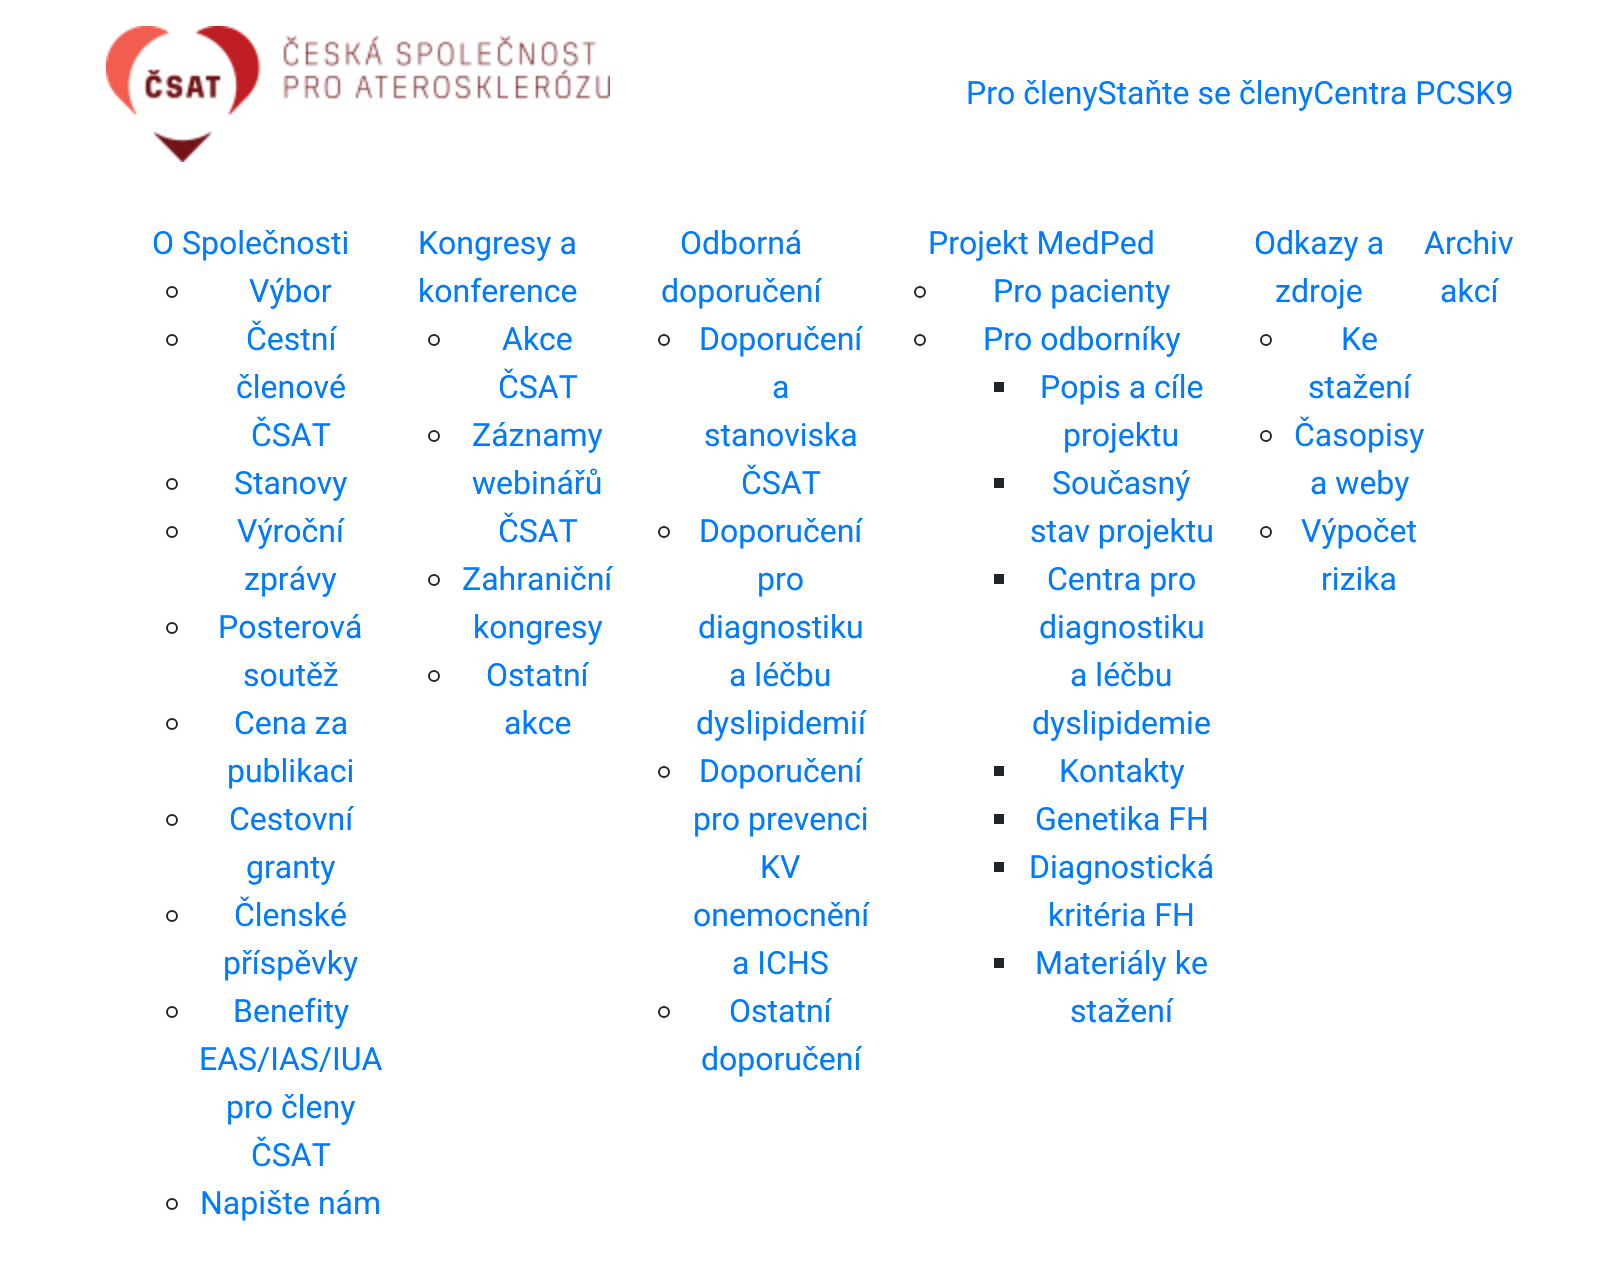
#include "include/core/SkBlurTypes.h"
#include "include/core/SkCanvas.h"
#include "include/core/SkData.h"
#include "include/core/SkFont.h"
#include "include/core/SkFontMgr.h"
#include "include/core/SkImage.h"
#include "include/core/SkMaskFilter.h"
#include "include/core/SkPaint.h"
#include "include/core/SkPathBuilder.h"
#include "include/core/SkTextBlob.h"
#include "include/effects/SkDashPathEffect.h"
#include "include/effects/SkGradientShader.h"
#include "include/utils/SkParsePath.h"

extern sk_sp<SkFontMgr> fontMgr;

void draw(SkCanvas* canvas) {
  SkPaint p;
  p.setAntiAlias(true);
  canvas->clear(SK_ColorWHITE);
  canvas->drawImageRect(SkImages::DeferredFromEncodedData(SkData::MakeFromFileName("images/1.png")), SkRect::MakeLTRB(106, 26, 610, 162), SkSamplingOptions());
  p.setStyle(SkPaint::kStroke_Style);
  p.setStrokeWidth(2);
  p.setColor(SkColorSetRGB(33, 37, 41));
  canvas->drawCircle(172, 292, 5, p);
  canvas->drawCircle(172, 340, 5, p);
  canvas->drawCircle(172, 484, 5, p);
  canvas->drawCircle(172, 532, 5, p);
  canvas->drawCircle(172, 628, 5, p);
  canvas->drawCircle(172, 724, 5, p);
  canvas->drawCircle(172, 820, 5, p);
  canvas->drawCircle(172, 916, 5, p);
  canvas->drawCircle(172, 1012, 5, p);
  canvas->drawCircle(172, 1204, 5, p);
  canvas->drawCircle(434, 340, 5, p);
  canvas->drawCircle(434, 436, 5, p);
  canvas->drawCircle(434, 580, 5, p);
  canvas->drawCircle(434, 676, 5, p);
  canvas->drawCircle(664, 340, 5, p);
  canvas->drawCircle(664, 532, 5, p);
  canvas->drawCircle(664, 772, 5, p);
  canvas->drawCircle(664, 1012, 5, p);
  canvas->drawCircle(920, 292, 5, p);
  canvas->drawCircle(920, 340, 5, p);
  p.setStyle(SkPaint::kFill_Style);
  canvas->drawRect(SkRect::MakeLTRB(994, 382, 1004, 392), p);
  canvas->drawRect(SkRect::MakeLTRB(994, 478, 1004, 488), p);
  canvas->drawRect(SkRect::MakeLTRB(994, 574, 1004, 584), p);
  canvas->drawRect(SkRect::MakeLTRB(994, 766, 1004, 776), p);
  canvas->drawRect(SkRect::MakeLTRB(994, 814, 1004, 824), p);
  canvas->drawRect(SkRect::MakeLTRB(994, 862, 1004, 872), p);
  canvas->drawRect(SkRect::MakeLTRB(994, 958, 1004, 968), p);
  p.setStyle(SkPaint::kStroke_Style);
  canvas->drawCircle(1266, 340, 5, p);
  canvas->drawCircle(1266, 436, 5, p);
  canvas->drawCircle(1266, 532, 5, p);
  SkFont font1(fontMgr->matchFamilyStyle("Roboto", SkFontStyle::Normal()), 32);
  font1.setSubpixel(true);
  p.setStyle(SkPaint::kFill_Style);
  p.setColor(SkColorSetRGB(0, 123, 255));
  canvas->drawString("Pro členyStaňte se členyCentra PCSK9", 966, 104, font1, p);
  canvas->drawString("O Společnosti", 152, 254, font1, p);
  canvas->drawString("Výbor", 249, 302, font1, p);
  canvas->drawString("Čestní", 246, 350, font1, p);
  canvas->drawString("členové", 236, 398, font1, p);
  canvas->drawString("ČSAT", 251, 446, font1, p);
  canvas->drawString("Stanovy", 234, 494, font1, p);
  canvas->drawString("Výroční", 237, 542, font1, p);
  canvas->drawString("zprávy", 244, 590, font1, p);
  canvas->drawString("Posterová", 218, 638, font1, p);
  canvas->drawString("soutěž", 243, 686, font1, p);
  canvas->drawString("Cena za", 234, 734, font1, p);
  canvas->drawString("publikaci", 227, 782, font1, p);
  canvas->drawString("Cestovní", 229, 830, font1, p);
  canvas->drawString("granty", 246, 878, font1, p);
  canvas->drawString("Členské", 234, 926, font1, p);
  canvas->drawString("příspěvky", 223, 974, font1, p);
  canvas->drawString("Benefity", 233, 1022, font1, p);
  canvas->drawString("EAS/IAS/IUA", 199, 1070, font1, p);
  canvas->drawString("pro členy", 226, 1118, font1, p);
  canvas->drawString("ČSAT", 251, 1166, font1, p);
  canvas->drawString("Napište nám", 200, 1214, font1, p);
  canvas->drawString("Kongresy a", 418, 254, font1, p);
  canvas->drawString("konference", 418, 302, font1, p);
  canvas->drawString("Akce", 502, 350, font1, p);
  canvas->drawString("ČSAT", 498, 398, font1, p);
  canvas->drawString("Záznamy", 472, 446, font1, p);
  canvas->drawString("webinářů", 472, 494, font1, p);
  canvas->drawString("ČSAT", 498, 542, font1, p);
  canvas->drawString("Zahraniční", 462, 590, font1, p);
  canvas->drawString("kongresy", 473, 638, font1, p);
  canvas->drawString("Ostatní", 486, 686, font1, p);
  canvas->drawString("akce", 504, 734, font1, p);
  canvas->drawString("Odborná", 680, 254, font1, p);
  canvas->drawString("doporučení", 661, 302, font1, p);
  canvas->drawString("Doporučení", 699, 350, font1, p);
  canvas->drawString("a", 772, 398, font1, p);
  canvas->drawString("stanoviska", 704, 446, font1, p);
  canvas->drawString("ČSAT", 741, 494, font1, p);
  canvas->drawString("Doporučení", 699, 542, font1, p);
  canvas->drawString("pro", 757, 590, font1, p);
  canvas->drawString("diagnostiku", 698, 638, font1, p);
  canvas->drawString("a léčbu", 729, 686, font1, p);
  canvas->drawString("dyslipidemií", 696, 734, font1, p);
  canvas->drawString("Doporučení", 699, 782, font1, p);
  canvas->drawString("pro prevenci", 693, 830, font1, p);
  canvas->drawString("KV", 760, 878, font1, p);
  canvas->drawString("onemocnění", 693, 926, font1, p);
  canvas->drawString("a ICHS", 732, 974, font1, p);
  canvas->drawString("Ostatní", 729, 1022, font1, p);
  canvas->drawString("doporučení", 701, 1070, font1, p);
  canvas->drawString("Projekt MedPed", 928, 254, font1, p);
  canvas->drawString("Pro pacienty", 993, 302, font1, p);
  canvas->drawString("Pro odborníky", 983, 350, font1, p);
  canvas->drawString("Popis a cíle", 1040, 398, font1, p);
  canvas->drawString("projektu", 1063, 446, font1, p);
  canvas->drawString("Současný", 1052, 494, font1, p);
  canvas->drawString("stav projektu", 1030, 542, font1, p);
  canvas->drawString("Centra pro", 1047, 590, font1, p);
  canvas->drawString("diagnostiku", 1039, 638, font1, p);
  canvas->drawString("a léčbu", 1070, 686, font1, p);
  canvas->drawString("dyslipidemie", 1032, 734, font1, p);
  canvas->drawString("Kontakty", 1059, 782, font1, p);
  canvas->drawString("Genetika FH", 1035, 830, font1, p);
  canvas->drawString("Diagnostická", 1029, 878, font1, p);
  canvas->drawString("kritéria FH", 1048, 926, font1, p);
  canvas->drawString("Materiály ke", 1035, 974, font1, p);
  canvas->drawString("stažení", 1070, 1022, font1, p);
  canvas->drawString("Odkazy a", 1254, 254, font1, p);
  canvas->drawString("zdroje", 1275, 302, font1, p);
  canvas->drawString("Ke", 1341, 350, font1, p);
  canvas->drawString("stažení", 1308, 398, font1, p);
  canvas->drawString("Časopisy", 1294, 446, font1, p);
  canvas->drawString("a weby", 1310, 494, font1, p);
  canvas->drawString("Výpočet", 1301, 542, font1, p);
  canvas->drawString("rizika", 1321, 590, font1, p);
  canvas->drawString("Archiv", 1424, 254, font1, p);
  canvas->drawString("akcí", 1440, 302, font1, p);
}
